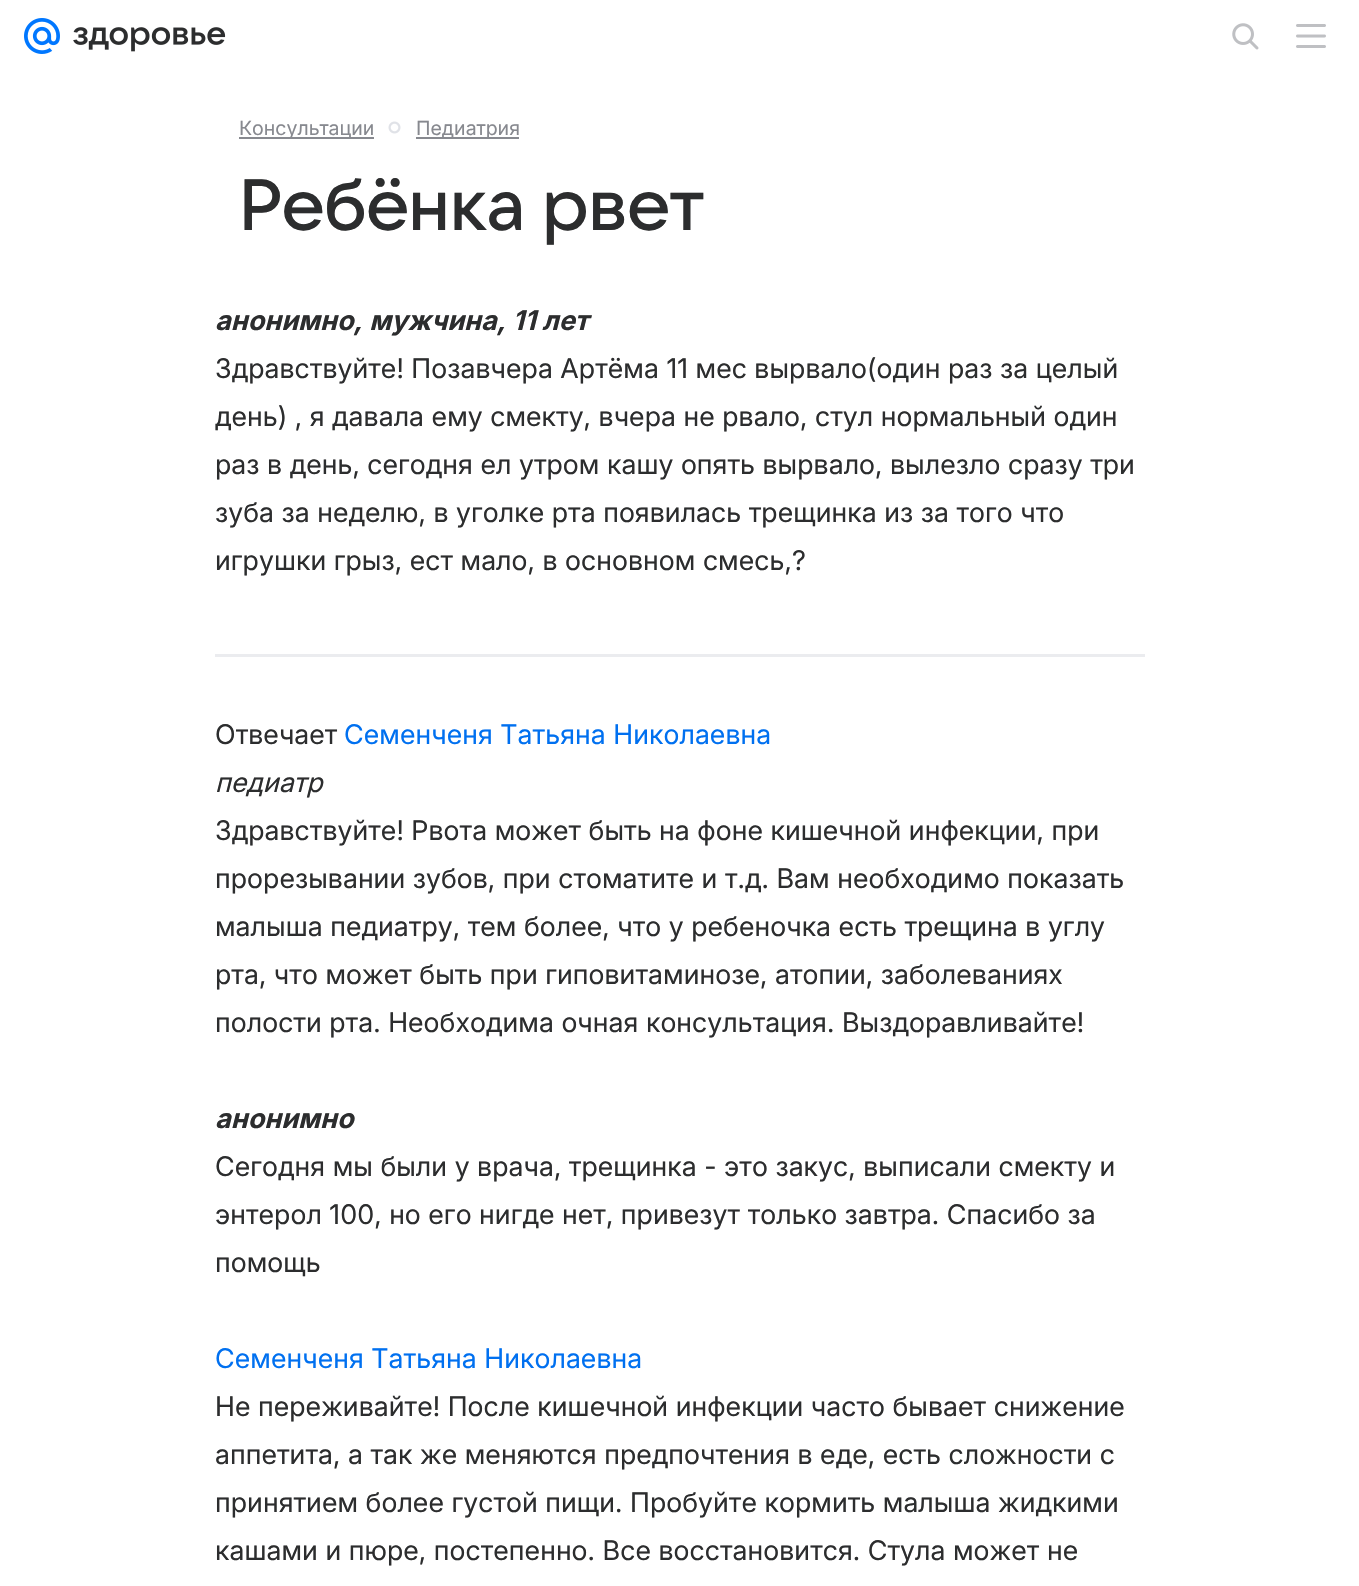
#include "include/core/SkBlurTypes.h"
#include "include/core/SkCanvas.h"
#include "include/core/SkData.h"
#include "include/core/SkFont.h"
#include "include/core/SkFontMgr.h"
#include "include/core/SkImage.h"
#include "include/core/SkMaskFilter.h"
#include "include/core/SkPaint.h"
#include "include/core/SkPathBuilder.h"
#include "include/core/SkTextBlob.h"
#include "include/effects/SkDashPathEffect.h"
#include "include/effects/SkGradientShader.h"
#include "include/utils/SkParsePath.h"

extern sk_sp<SkFontMgr> fontMgr;

void draw(SkCanvas* canvas) {
  SkPaint p;
  p.setAntiAlias(true);
  auto spacedText = [&](const char* s, float x, float y, const SkFont& font, const SkPaint& ink, float letter, float word) {
    std::vector<SkGlyphID> glyphs(font.countText(s, strlen(s), SkTextEncoding::kUTF8));
    std::vector<float> xs(glyphs.size());
    font.textToGlyphs(s, strlen(s), SkTextEncoding::kUTF8, glyphs);
    font.getXPos(glyphs, xs, x);
    float extra = 0;
    for (size_t i = 0; i < glyphs.size(); i++) {
      xs[i] += extra;
      extra += letter + word * (glyphs[i] == font.unicharToGlyph(' '));
    }
    canvas->drawTextBlob(SkTextBlob::MakeFromPosHGlyphs(glyphs, xs, y, font), 0, 0, ink);
  };
  canvas->clear(SK_ColorWHITE);
  canvas->drawImageRect(SkImages::DeferredFromEncodedData(SkData::MakeFromFileName("images/1.png")), SkRect::MakeLTRB(24, 18, 60, 54), SkSamplingOptions());
  canvas->drawImageRect(SkImages::DeferredFromEncodedData(SkData::MakeFromFileName("images/2.png")), SkRect::MakeLTRB(73, 27, 226, 52), SkSamplingOptions());
  canvas->drawImageRect(SkImages::DeferredFromEncodedData(SkData::MakeFromFileName("images/3.png")), SkRect::MakeLTRB(1232, 23, 1259, 50), SkSamplingOptions());
  canvas->drawImageRect(SkImages::DeferredFromEncodedData(SkData::MakeFromFileName("images/4.png")), SkRect::MakeLTRB(1296, 24, 1326, 48), SkSamplingOptions());
  p.setColor(SkColorSetRGB(135, 137, 143));
  canvas->drawRect(SkRect::MakeLTRB(239, 137, 374, 139), p);
  canvas->drawImageRect(SkImages::DeferredFromEncodedData(SkData::MakeFromFileName("images/5.png")), SkRect::MakeLTRB(388, 121, 401, 134), SkSamplingOptions());
  canvas->drawRect(SkRect::MakeLTRB(416, 137, 519, 139), p);
  p.setColor(SkColorSetRGB(235, 236, 239));
  canvas->drawRect(SkRect::MakeLTRB(215, 654, 1145, 657), p);
  SkFont font1(fontMgr->matchFamilyStyle("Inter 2", SkFontStyle::Normal()), 19.5f);
  font1.setSubpixel(true);
  p.setColor(SkColorSetRGB(135, 137, 143));
  canvas->drawString("Консультации", 239, 135, font1, p);
  canvas->drawString("Педиатрия", 416, 135, font1, p);
  SkFont font2(fontMgr->matchFamilyStyle("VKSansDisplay", SkFontStyle(500, SkFontStyle::kNormal_Width, SkFontStyle::kUpright_Slant)), 72);
  font2.setSubpixel(true);
  p.setColor(SkColorSetRGB(44, 45, 46));
  spacedText("Ребёнка рвет", 239, 230, font2, p, -0.4f, 0);
  SkFont font3(fontMgr->matchFamilyStyle("Inter", SkFontStyle::BoldItalic()), 27);
  font3.setSubpixel(true);
  spacedText("анонимно, мужчина, 11 лет", 215, 330, font3, p, 0.08f, 0);
  SkFont font4(fontMgr->matchFamilyStyle("Inter", SkFontStyle::Normal()), 27);
  font4.setSubpixel(true);
  spacedText("Здравствуйте! Позавчера Артёма 11 мес вырвало(один раз за целый", 215, 378, font4, p, 0.08f, 0);
  spacedText("день) , я давала ему смекту, вчера не рвало, стул нормальный один", 215, 426, font4, p, 0.08f, 0);
  spacedText("раз в день, сегодня ел утром кашу опять вырвало, вылезло сразу три", 215, 474, font4, p, 0.08f, 0);
  spacedText("зуба за неделю, в уголке рта появилась трещинка из за того что", 215, 522, font4, p, 0.08f, 0);
  spacedText("игрушки грыз, ест мало, в основном смесь,?", 215, 570, font4, p, 0.08f, 0);
  spacedText("Отвечает", 215, 744, font4, p, 0.08f, 0);
  p.setColor(SkColorSetRGB(0, 112, 240));
  spacedText("Семенченя Татьяна Николаевна", 344, 744, font4, p, 0.08f, 0);
  SkFont font5(fontMgr->matchFamilyStyle("Inter", SkFontStyle::Italic()), 27);
  font5.setSubpixel(true);
  p.setColor(SkColorSetRGB(44, 45, 46));
  spacedText("педиатр", 215, 792, font5, p, 0.08f, 0);
  spacedText("Здравствуйте! Рвота может быть на фоне кишечной инфекции, при", 215, 840, font4, p, 0.08f, 0);
  spacedText("прорезывании зубов, при стоматите и т.д. Вам необходимо показать", 215, 888, font4, p, 0.08f, 0);
  spacedText("малыша педиатру, тем более, что у ребеночка есть трещина в углу", 215, 936, font4, p, 0.08f, 0);
  spacedText("рта, что может быть при гиповитаминозе, атопии, заболеваниях", 215, 984, font4, p, 0.08f, 0);
  spacedText("полости рта. Необходима очная консультация. Выздоравливайте!", 215, 1032, font4, p, 0.08f, 0);
  spacedText("анонимно", 215, 1128, font3, p, 0.08f, 0);
  spacedText("Сегодня мы были у врача, трещинка - это закус, выписали смекту и", 215, 1176, font4, p, 0.08f, 0);
  spacedText("энтерол 100, но его нигде нет, привезут только завтра. Спасибо за", 215, 1224, font4, p, 0.08f, 0);
  spacedText("помощь", 215, 1272, font4, p, 0.08f, 0);
  p.setColor(SkColorSetRGB(0, 112, 240));
  spacedText("Семенченя Татьяна Николаевна", 215, 1368, font4, p, 0.08f, 0);
  p.setColor(SkColorSetRGB(44, 45, 46));
  spacedText("Не переживайте! После кишечной инфекции часто бывает снижение", 215, 1416, font4, p, 0.08f, 0);
  spacedText("аппетита, а так же меняются предпочтения в еде, есть сложности с", 215, 1464, font4, p, 0.08f, 0);
  spacedText("принятием более густой пищи. Пробуйте кормить малыша жидкими", 215, 1512, font4, p, 0.08f, 0);
  spacedText("кашами и пюре, постепенно. Все восстановится. Стула может не", 215, 1560, font4, p, 0.08f, 0);
}
